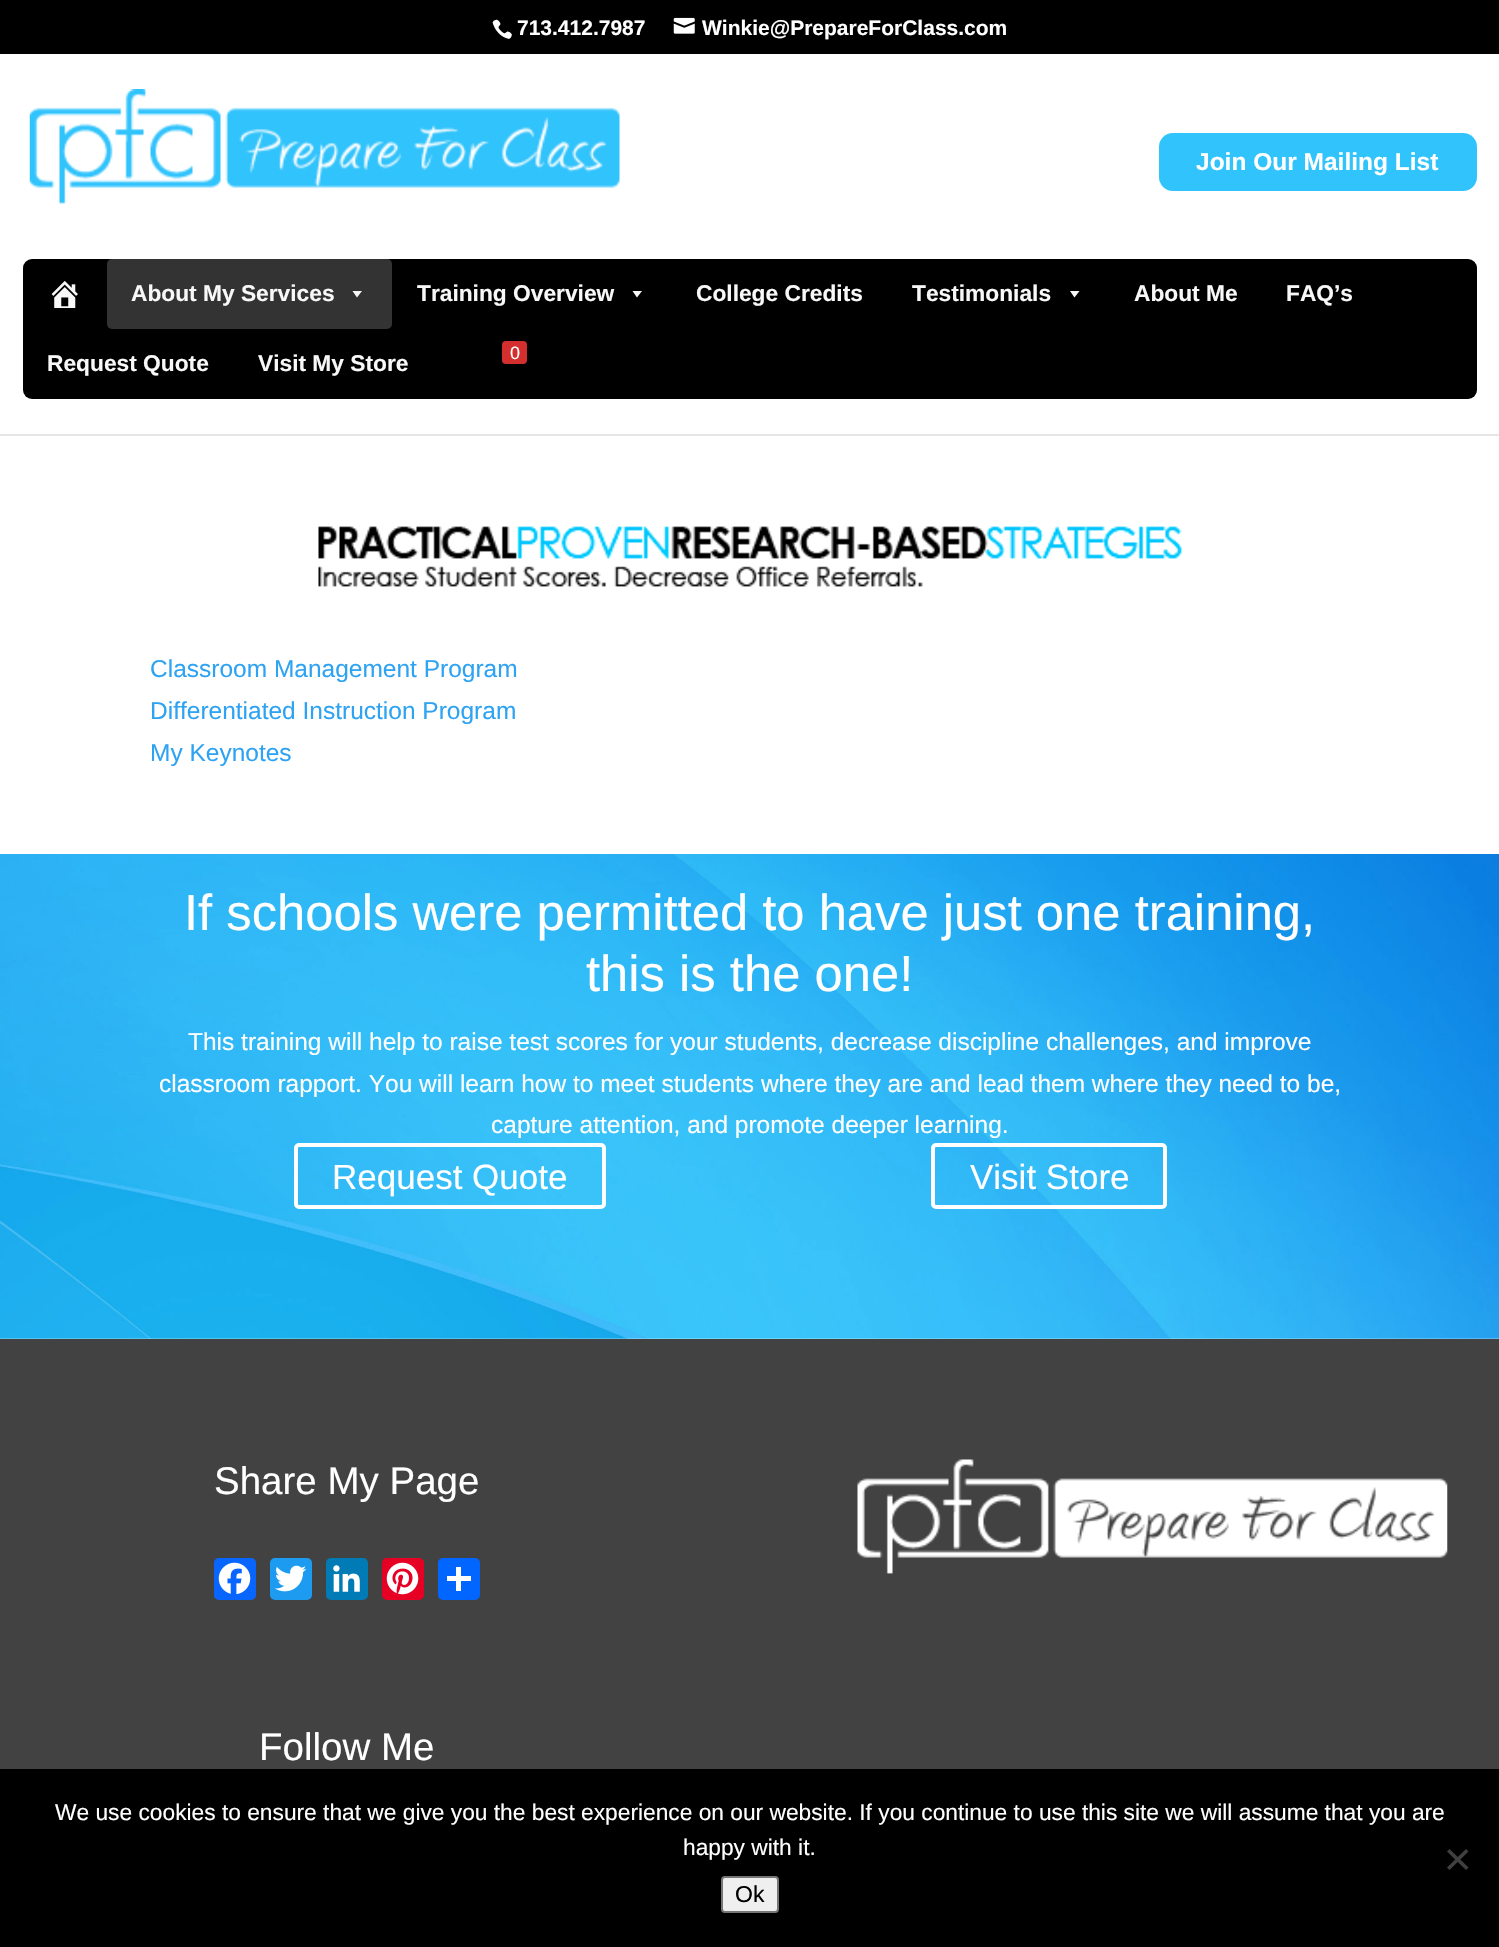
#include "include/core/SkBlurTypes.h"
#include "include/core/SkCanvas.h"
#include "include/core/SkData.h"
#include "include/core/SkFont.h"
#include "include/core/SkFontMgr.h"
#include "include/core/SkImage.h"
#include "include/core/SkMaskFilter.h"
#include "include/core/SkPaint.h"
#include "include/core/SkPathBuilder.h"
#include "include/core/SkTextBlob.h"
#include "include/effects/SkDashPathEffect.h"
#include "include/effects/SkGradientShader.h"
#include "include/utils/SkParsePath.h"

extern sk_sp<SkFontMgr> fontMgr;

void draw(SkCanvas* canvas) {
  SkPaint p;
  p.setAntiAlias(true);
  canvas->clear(SK_ColorWHITE);
  p.setColor(SK_ColorBLACK);
  canvas->drawRect(SkRect::MakeLTRB(0, 0, 1499, 54), p);
  canvas->drawImageRect(SkImages::DeferredFromEncodedData(SkData::MakeFromFileName("images/1.png")), SkRect::MakeLTRB(492, 19, 512, 39), SkSamplingOptions());
  canvas->drawImageRect(SkImages::DeferredFromEncodedData(SkData::MakeFromFileName("images/2.png")), SkRect::MakeLTRB(673, 17, 695, 34), SkSamplingOptions());
  p.setColor(SkColorSetRGB(230, 230, 230));
  canvas->drawPath(SkPathBuilder().moveTo(0, 434).lineTo(0, 436).lineTo(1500, 436).lineTo(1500, 56).lineTo(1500, 434).close().detach(), p);
  canvas->drawImageRect(SkImages::DeferredFromEncodedData(SkData::MakeFromFileName("images/3.png")), SkRect::MakeLTRB(29, 89, 620, 205), SkSamplingOptions());
  p.setColor(SkColorSetRGB(49, 195, 252));
  canvas->drawRoundRect(SkRect::MakeLTRB(1159, 133, 1477, 191), 14, 14, p);
  p.setColor(SK_ColorBLACK);
  canvas->drawRoundRect(SkRect::MakeLTRB(23, 259, 1477, 399), 9, 9, p);
  canvas->drawImageRect(SkImages::DeferredFromEncodedData(SkData::MakeFromFileName("images/4.png")), SkRect::MakeLTRB(51, 281, 78, 308), SkSamplingOptions());
  p.setColor(SkColorSetRGB(51, 51, 51));
  canvas->drawRoundRect(SkRect::MakeLTRB(107, 259, 392, 329), 5, 5, p);
  p.setColor(SkColorSetRGB(248, 248, 248));
  canvas->drawPath(SkPathBuilder().moveTo(362, 291).lineTo(357, 297.5f).lineTo(352.5f, 291).close().detach(), p);
  canvas->drawPath(SkPathBuilder().moveTo(642, 291).lineTo(637, 297.5f).lineTo(632.5f, 291).close().detach(), p);
  canvas->drawPath(SkPathBuilder().moveTo(1079.5f, 291).lineTo(1074.5f, 297.5f).lineTo(1070, 291).close().detach(), p);
  p.setColor(SkColorSetRGB(211, 47, 47));
  canvas->drawRoundRect(SkRect::MakeLTRB(502, 341, 527, 364), 4, 4, p);
  canvas->drawImageRect(SkImages::DeferredFromEncodedData(SkData::MakeFromFileName("images/5.png")), SkRect::MakeLTRB(318, 526, 1182, 587), SkSamplingOptions());
  canvas->drawImageRect(SkImages::DeferredFromEncodedData(SkData::MakeFromFileName("images/6.png")), SkRect::MakeLTRB(0, 854, 1499, 1339), SkSamplingOptions());
  p.setStyle(SkPaint::kStroke_Style);
  p.setStrokeWidth(4);
  p.setColor(SK_ColorWHITE);
  canvas->drawRoundRect(SkRect::MakeLTRB(296, 1145, 604, 1207), 3, 3, p);
  canvas->drawRoundRect(SkRect::MakeLTRB(933, 1145, 1165, 1207), 3, 3, p);
  p.setStyle(SkPaint::kFill_Style);
  p.setColor(SkColorSetRGB(66, 66, 66));
  canvas->drawRect(SkRect::MakeLTRB(0, 1339, 1499, 1769), p);
  p.setColor(SkColorSetRGB(8, 102, 255));
  canvas->drawRoundRect(SkRect::MakeLTRB(214, 1558, 256, 1600), 5, 5, p);
  canvas->drawImageRect(SkImages::DeferredFromEncodedData(SkData::MakeFromFileName("images/7.png")), SkRect::MakeLTRB(218, 1562, 251, 1595), SkSamplingOptions());
  p.setColor(SkColorSetRGB(29, 155, 240));
  canvas->drawRoundRect(SkRect::MakeLTRB(270, 1558, 312, 1600), 5, 5, p);
  canvas->drawImageRect(SkImages::DeferredFromEncodedData(SkData::MakeFromFileName("images/8.png")), SkRect::MakeLTRB(275, 1565, 307, 1592), SkSamplingOptions());
  p.setColor(SkColorSetRGB(0, 123, 181));
  canvas->drawRoundRect(SkRect::MakeLTRB(326, 1558, 368, 1600), 5, 5, p);
  canvas->drawImageRect(SkImages::DeferredFromEncodedData(SkData::MakeFromFileName("images/9.png")), SkRect::MakeLTRB(333, 1565, 360, 1592), SkSamplingOptions());
  p.setColor(SkColorSetRGB(230, 0, 35));
  canvas->drawRoundRect(SkRect::MakeLTRB(382, 1558, 424, 1600), 5, 5, p);
  canvas->drawImageRect(SkImages::DeferredFromEncodedData(SkData::MakeFromFileName("images/10.png")), SkRect::MakeLTRB(386, 1562, 419, 1595), SkSamplingOptions());
  p.setColor(SkColorSetRGB(1, 102, 255));
  canvas->drawRoundRect(SkRect::MakeLTRB(438, 1558, 480, 1600), 5, 5, p);
  p.setColor(SK_ColorWHITE);
  canvas->drawRect(SkRect::MakeLTRB(456, 1567, 461, 1591), p);
  canvas->drawRect(SkRect::MakeLTRB(447, 1576, 471, 1581), p);
  canvas->drawImageRect(SkImages::DeferredFromEncodedData(SkData::MakeFromFileName("images/11.png")), SkRect::MakeLTRB(857, 1459, 1448, 1574), SkSamplingOptions());
  p.setColor(SK_ColorBLACK);
  canvas->drawRect(SkRect::MakeLTRB(0, 1769, 1499, 1947), p);
  p.setColor(SkColorSetRGB(64, 64, 64));
  canvas->drawPath(SkPathBuilder().moveTo(1466, 1849).lineTo(1468.5f, 1851.5f).lineTo(1449.5f, 1870).lineTo(1447, 1867.5f).close().detach(), p);
  canvas->drawPath(SkPathBuilder().moveTo(1447, 1851.5f).lineTo(1449.5f, 1849).lineTo(1468.5f, 1867.5f).lineTo(1466, 1870).close().detach(), p);
  p.setColor(SkColorSetRGB(239, 239, 239));
  canvas->drawRoundRect(SkRect::MakeLTRB(722, 1877, 778, 1912), 3, 3, p);
  p.setStyle(SkPaint::kStroke_Style);
  p.setStrokeWidth(2);
  p.setColor(SkColorSetRGB(118, 118, 118));
  canvas->drawRoundRect(SkRect::MakeLTRB(722, 1877, 778, 1912), 3, 3, p);
  SkFont font1(fontMgr->matchFamilyStyle("Liberation Sans", SkFontStyle::Bold()), 21);
  font1.setSubpixel(true);
  p.setStyle(SkPaint::kFill_Style);
  p.setColor(SK_ColorWHITE);
  canvas->drawString("713.412.7987", 517, 35, font1, p);
  canvas->drawString("Winkie@PrepareForClass.com", 702, 35, font1, p);
  SkFont font2(fontMgr->matchFamilyStyle("Liberation Sans", SkFontStyle::Bold()), 24.5f);
  font2.setSubpixel(true);
  canvas->drawString("Join Our Mailing List", 1196, 170, font2, p);
  SkFont font3(fontMgr->matchFamilyStyle("Liberation Sans", SkFontStyle::Bold()), 22.75f);
  font3.setSubpixel(true);
  p.setColor(SkColorSetRGB(248, 248, 248));
  canvas->drawString("About My Services", 131, 301, font3, p);
  canvas->drawString("Training Overview", 417, 301, font3, p);
  canvas->drawString("College Credits", 696, 301, font3, p);
  canvas->drawString("Testimonials", 912, 301, font3, p);
  canvas->drawString("About Me", 1134, 301, font3, p);
  canvas->drawString("FAQ’s", 1286, 301, font3, p);
  canvas->drawString("Request Quote", 47, 371, font3, p);
  canvas->drawString("Visit My Store", 258, 371, font3, p);
  SkFont font4(fontMgr->matchFamilyStyle("Liberation Sans", SkFontStyle::Normal()), 18);
  font4.setSubpixel(true);
  p.setColor(SK_ColorWHITE);
  canvas->drawString("0", 510, 359, font4, p);
  SkFont font5(fontMgr->matchFamilyStyle("Liberation Sans", SkFontStyle::Normal()), 24.5f);
  font5.setSubpixel(true);
  p.setColor(SkColorSetRGB(46, 163, 242));
  canvas->drawString("Classroom Management Program", 150, 677, font5, p);
  canvas->drawString("Differentiated Instruction Program", 150, 719, font5, p);
  canvas->drawString("My Keynotes", 150, 761, font5, p);
  SkFont font6(fontMgr->matchFamilyStyle("Liberation Sans", SkFontStyle::Normal()), 50.75f);
  font6.setSubpixel(true);
  p.setColor(SK_ColorWHITE);
  canvas->drawString("If schools were permitted to have just one training,", 184, 930, font6, p);
  canvas->drawString("this is the one!", 586, 991, font6, p);
  canvas->drawString("This training will help to raise test scores for your students, decrease discipline challenges, and improve", 188, 1050, font5, p);
  canvas->drawString("classroom rapport. You will learn how to meet students where they are and lead them where they need to be,", 159, 1092, font5, p);
  canvas->drawString("capture attention, and promote deeper learning.", 491, 1133, font5, p);
  SkFont font7(fontMgr->matchFamilyStyle("Liberation Sans", SkFontStyle::Normal()), 35);
  font7.setSubpixel(true);
  canvas->drawString("Request Quote", 332, 1189, font7, p);
  canvas->drawString("Visit Store", 970, 1189, font7, p);
  SkFont font8(fontMgr->matchFamilyStyle("Liberation Sans", SkFontStyle::Normal()), 38.5f);
  font8.setSubpixel(true);
  canvas->drawString("Share My Page", 214, 1494, font8, p);
  canvas->drawString("Follow Me", 259, 1760, font8, p);
  SkFont font9(fontMgr->matchFamilyStyle("Liberation Sans", SkFontStyle::Normal()), 22.75f);
  font9.setSubpixel(true);
  canvas->drawString("We use cookies to ensure that we give you the best experience on our website. If you continue to use this site we will assume that you are", 55, 1820, font9, p);
  canvas->drawString("happy with it.", 683, 1855, font9, p);
  SkFont font10(fontMgr->matchFamilyStyle("Liberation Sans", SkFontStyle::Normal()), 23);
  font10.setSubpixel(true);
  p.setColor(SK_ColorBLACK);
  canvas->drawString("Ok", 735, 1902, font10, p);
}
